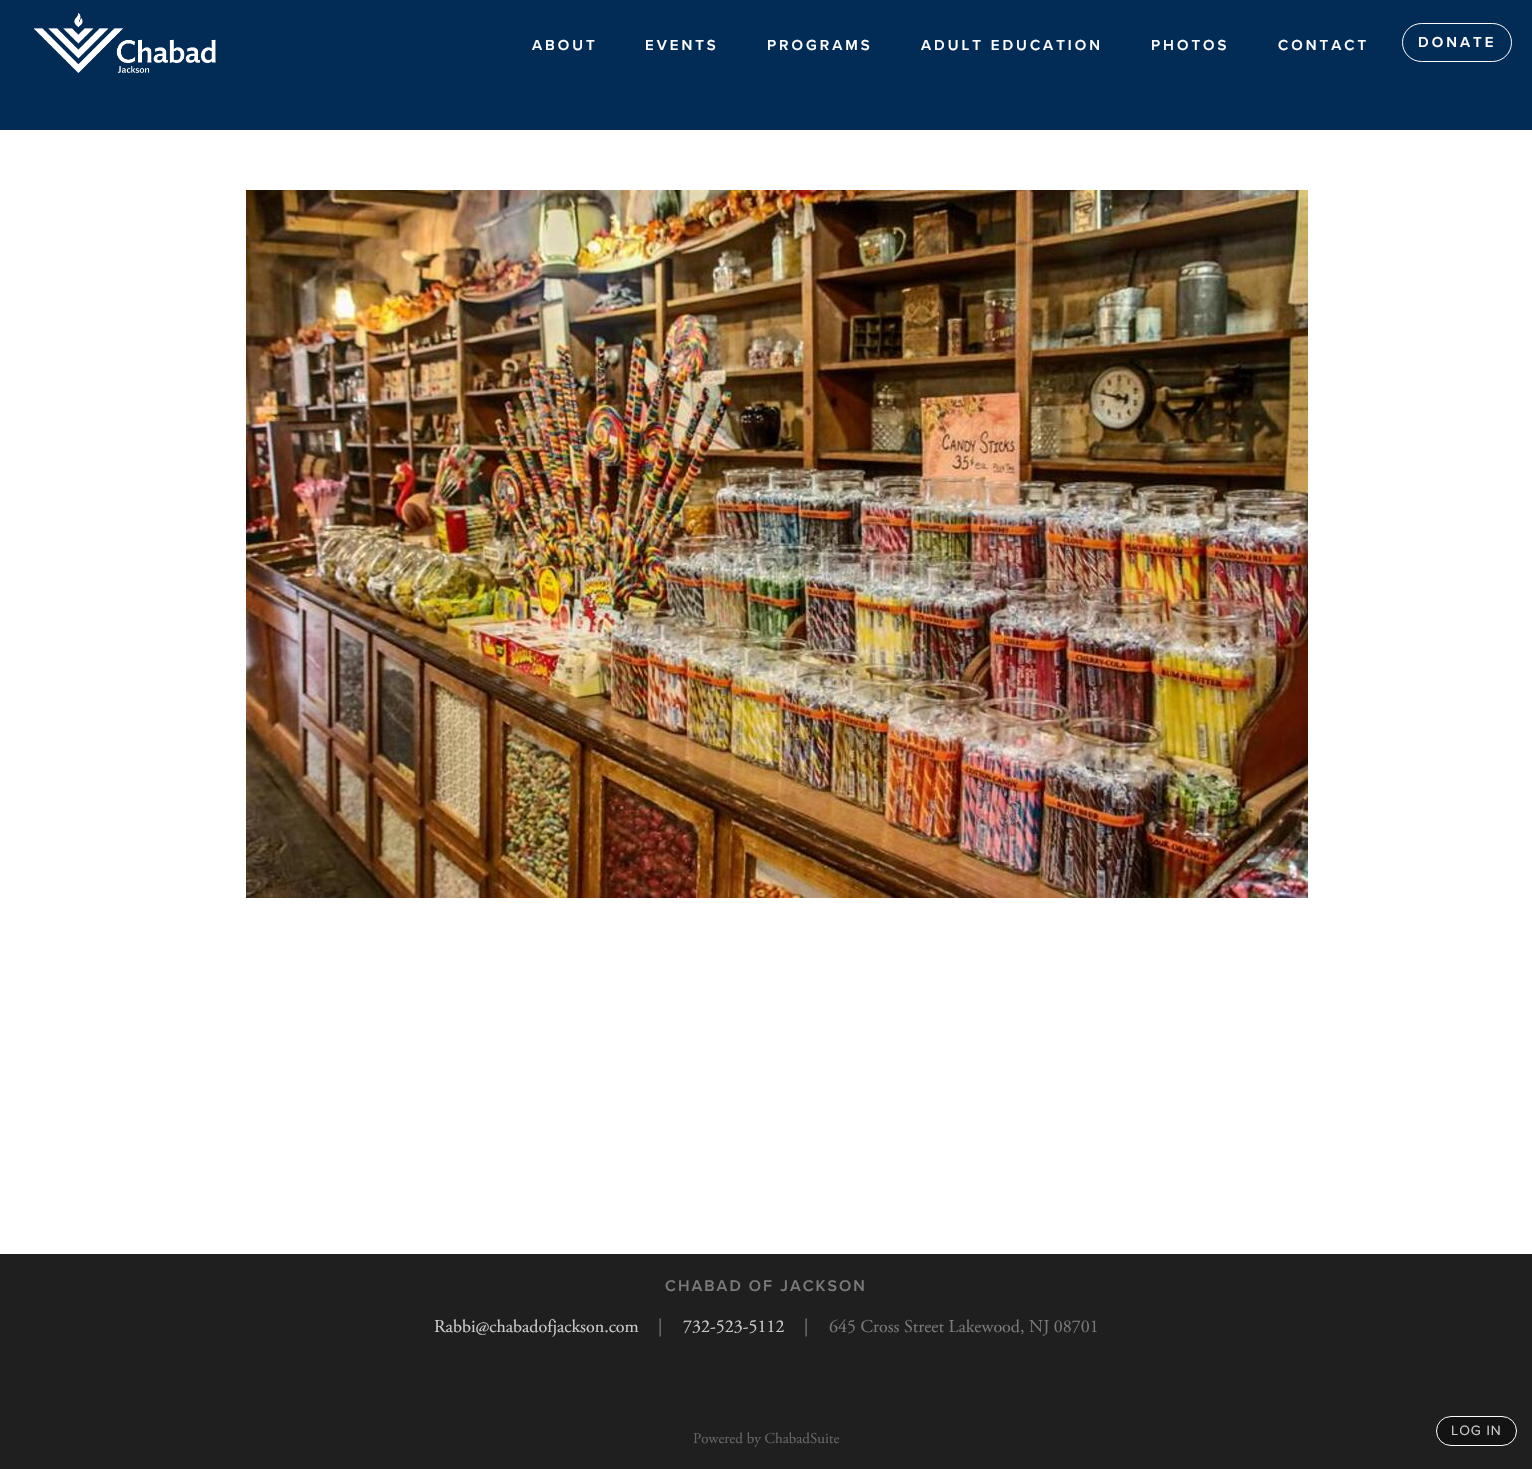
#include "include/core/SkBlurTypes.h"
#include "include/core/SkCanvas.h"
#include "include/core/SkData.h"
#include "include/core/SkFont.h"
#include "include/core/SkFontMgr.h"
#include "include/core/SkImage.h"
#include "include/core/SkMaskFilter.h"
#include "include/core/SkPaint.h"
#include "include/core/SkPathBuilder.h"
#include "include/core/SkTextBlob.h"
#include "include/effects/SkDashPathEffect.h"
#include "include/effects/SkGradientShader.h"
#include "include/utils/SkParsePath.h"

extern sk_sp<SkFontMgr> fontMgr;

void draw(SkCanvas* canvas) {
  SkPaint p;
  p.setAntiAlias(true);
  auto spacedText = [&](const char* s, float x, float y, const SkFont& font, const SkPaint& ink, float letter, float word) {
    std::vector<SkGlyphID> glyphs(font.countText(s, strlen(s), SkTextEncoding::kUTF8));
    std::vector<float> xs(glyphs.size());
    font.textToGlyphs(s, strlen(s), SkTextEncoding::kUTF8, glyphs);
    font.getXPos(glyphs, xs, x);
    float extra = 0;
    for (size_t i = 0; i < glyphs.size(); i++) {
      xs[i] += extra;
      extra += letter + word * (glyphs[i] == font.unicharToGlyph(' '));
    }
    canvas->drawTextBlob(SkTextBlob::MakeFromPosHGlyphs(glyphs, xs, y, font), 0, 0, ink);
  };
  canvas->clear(SK_ColorWHITE);
  p.setColor(SkColorSetRGB(2, 43, 86));
  canvas->drawRect(SkRect::MakeLTRB(0, 0, 1532, 130), p);
  canvas->drawImageRect(SkImages::DeferredFromEncodedData(SkData::MakeFromFileName("images/1.png")), SkRect::MakeLTRB(33, 13, 216, 73), SkSamplingOptions());
  p.setStyle(SkPaint::kStroke_Style);
  p.setStrokeWidth(1);
  p.setColor(SK_ColorWHITE);
  canvas->drawRoundRect(SkRect::MakeLTRB(1402.5f, 23.5f, 1511.5f, 61.5f), 19, 19, p);
  canvas->drawImageRect(SkImages::DeferredFromEncodedData(SkData::MakeFromFileName("images/2.png")), SkRect::MakeLTRB(246, 190, 1308, 898), SkSamplingOptions());
  p.setStyle(SkPaint::kFill_Style);
  p.setColor(SkColorSetRGB(31, 31, 31));
  canvas->drawRect(SkRect::MakeLTRB(0, 1254, 1532, 1469), p);
  p.setColor(SkColorSetRGB(19, 19, 19));
  canvas->drawRoundRect(SkRect::MakeLTRB(1436.5f, 1416.5f, 1516.5f, 1445.5f), 14.5f, 14.5f, p);
  p.setStyle(SkPaint::kStroke_Style);
  p.setColor(SK_ColorWHITE);
  canvas->drawRoundRect(SkRect::MakeLTRB(1436.5f, 1416.5f, 1516.5f, 1445.5f), 14.5f, 14.5f, p);
  SkFont font1(fontMgr->matchFamilyStyle("Proxima Nova", SkFontStyle(600, SkFontStyle::kNormal_Width, SkFontStyle::kUpright_Slant)), 15);
  font1.setSubpixel(true);
  p.setStyle(SkPaint::kFill_Style);
  spacedText("ABOUT", 532, 50, font1, p, 3, 0);
  spacedText("EVENTS", 645, 50, font1, p, 3, 0);
  spacedText("PROGRAMS", 767, 50, font1, p, 3, 0);
  spacedText("ADULT EDUCATION", 921, 50, font1, p, 3, 0);
  spacedText("PHOTOS", 1151, 50, font1, p, 3, 0);
  spacedText("CONTACT", 1278, 50, font1, p, 3, 0);
  spacedText("DONATE", 1418, 47, font1, p, 3, 0);
  SkFont font2(fontMgr->matchFamilyStyle("Proxima Nova", SkFontStyle(600, SkFontStyle::kNormal_Width, SkFontStyle::kUpright_Slant)), 16);
  font2.setSubpixel(true);
  p.setColor(SkColorSetRGB(121, 121, 121));
  spacedText("CHABAD OF JACKSON", 665, 1291, font2, p, 2, 0);
  SkFont font3(fontMgr->matchFamilyStyle("Adobe Garamond", SkFontStyle::Normal()), 18);
  font3.setSubpixel(true);
  p.setColor(SkColorSetRGB(204, 204, 204));
  canvas->drawString("Rabbi@chabadofjackson.com", 434, 1332, font3, p);
  p.setColor(SkColorSetRGB(121, 121, 121));
  canvas->drawString("|", 658, 1332, font3, p);
  p.setColor(SkColorSetRGB(204, 204, 204));
  canvas->drawString("732-523-5112", 683, 1332, font3, p);
  p.setColor(SkColorSetRGB(121, 121, 121));
  canvas->drawString("|", 804, 1332, font3, p);
  canvas->drawString("645 Cross Street Lakewood, NJ 08701", 829, 1332, font3, p);
  SkFont font4(fontMgr->matchFamilyStyle("Proxima Nova", SkFontStyle::Normal()), 14);
  font4.setSubpixel(true);
  p.setColor(SkColorSetRGB(204, 204, 204));
  spacedText("LOG IN", 1451, 1435, font4, p, 1, 0);
  SkFont font5(fontMgr->matchFamilyStyle("Adobe Garamond", SkFontStyle::Normal()), 15);
  font5.setSubpixel(true);
  p.setColor(SkColorSetRGB(102, 102, 102));
  canvas->drawString("Powered by ChabadSuite", 693, 1443, font5, p);
}
